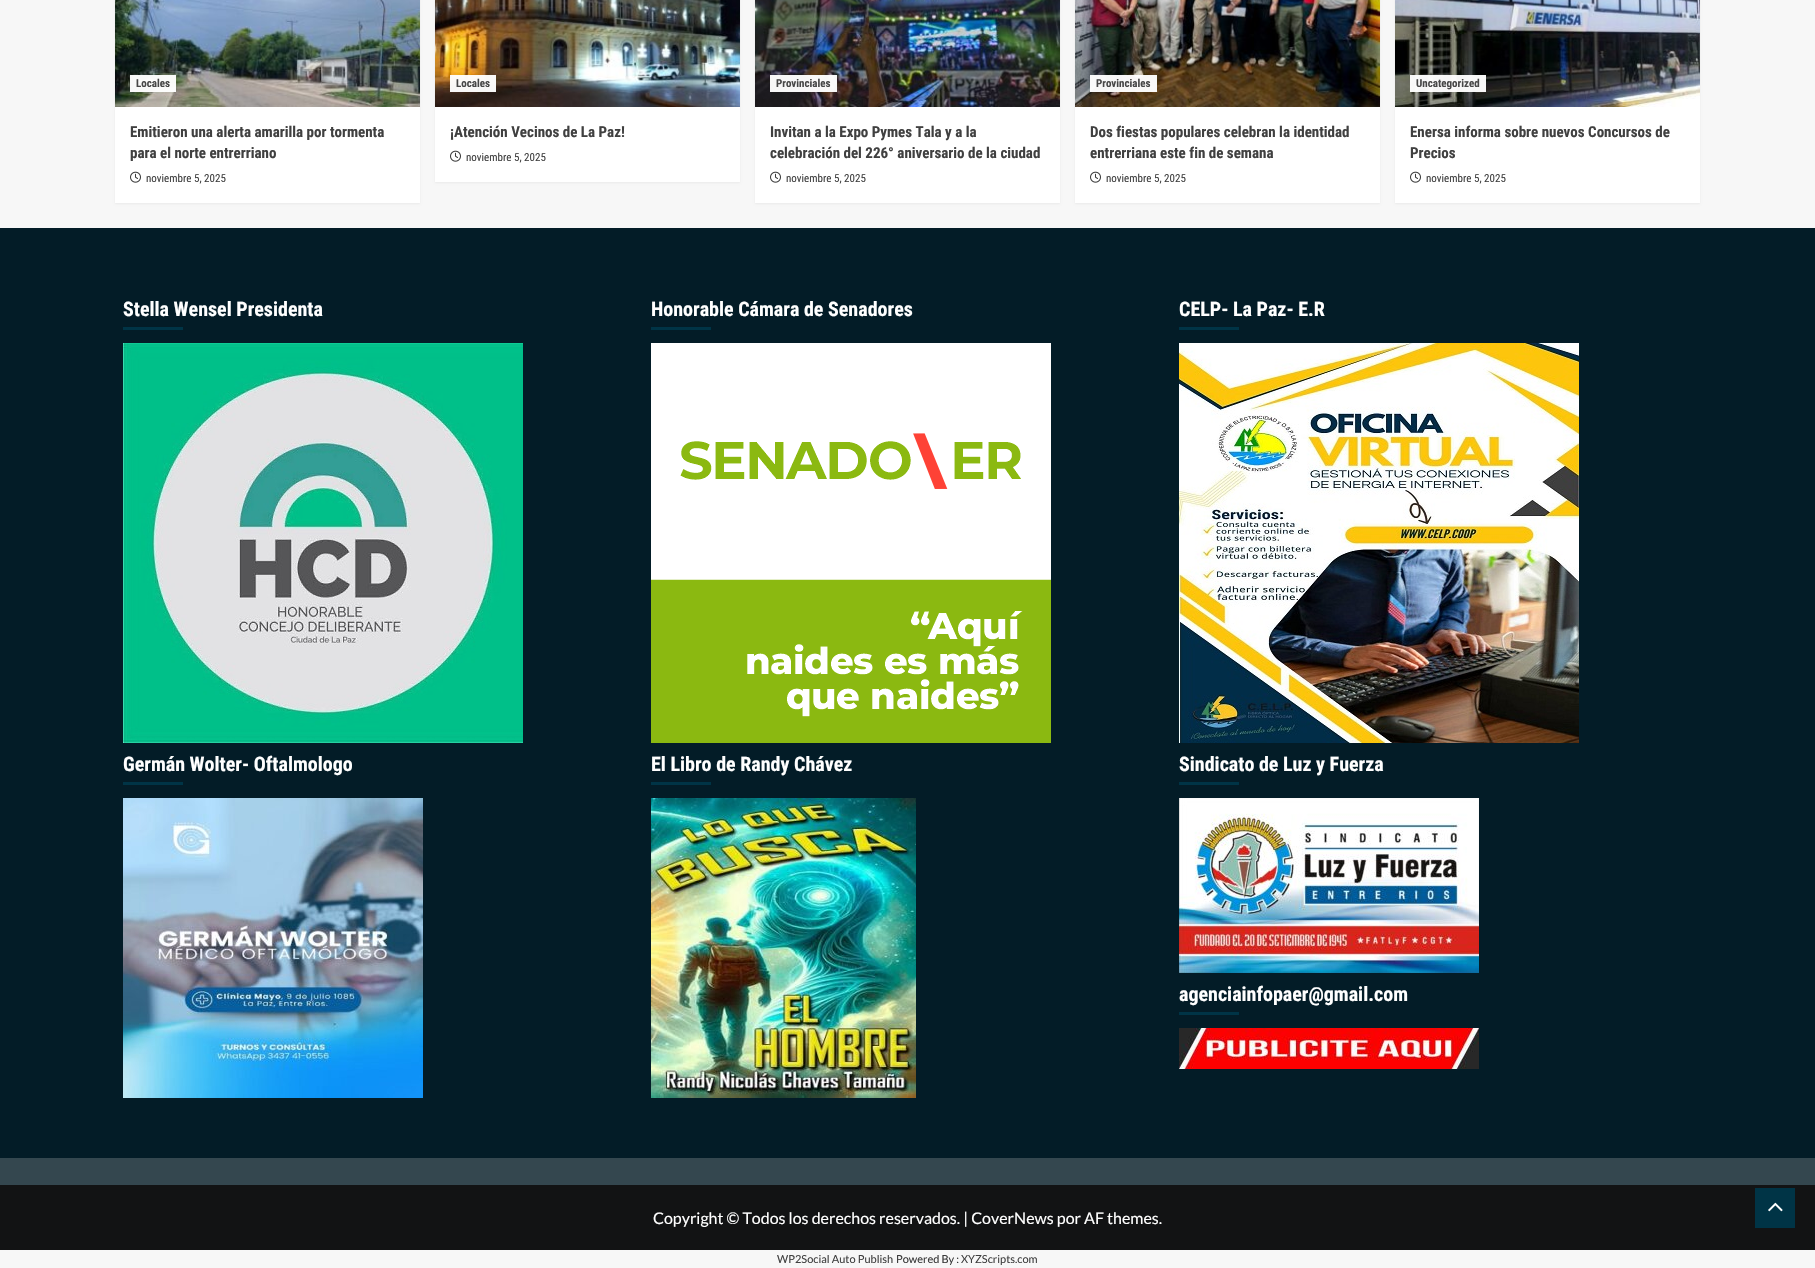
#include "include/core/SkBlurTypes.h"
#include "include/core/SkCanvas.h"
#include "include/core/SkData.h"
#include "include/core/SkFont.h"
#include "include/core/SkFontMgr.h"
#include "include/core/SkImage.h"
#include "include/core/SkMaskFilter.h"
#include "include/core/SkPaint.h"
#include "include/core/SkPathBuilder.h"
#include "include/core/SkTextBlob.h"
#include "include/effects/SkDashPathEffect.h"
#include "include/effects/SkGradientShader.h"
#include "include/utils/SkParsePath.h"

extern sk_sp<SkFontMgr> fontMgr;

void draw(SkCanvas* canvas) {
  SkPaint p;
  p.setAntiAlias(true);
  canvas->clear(SkColorSetRGB(247, 247, 247));
  p.setColor(SkColorSetARGB(13, 0, 0, 0));
  p.setMaskFilter(SkMaskFilter::MakeBlur(kNormal_SkBlurStyle, 1));
  canvas->drawRect(SkRect::MakeLTRB(115, -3, 420, 204), p);
  p.setMaskFilter(nullptr);
  p.setColor(SK_ColorWHITE);
  canvas->drawRect(SkRect::MakeLTRB(115, 107, 420, 203), p);
  canvas->drawImageRect(SkImages::DeferredFromEncodedData(SkData::MakeFromFileName("images/1.png")), SkRect::MakeLTRB(115, 0, 420, 107), SkSamplingOptions());
  p.setColor(SkColorSetARGB(245, 255, 255, 255));
  canvas->drawRect(SkRect::MakeLTRB(130, 75, 176, 92), p);
  canvas->drawImageRect(SkImages::DeferredFromEncodedData(SkData::MakeFromFileName("images/2.png")), SkRect::MakeLTRB(130, 171, 141, 183), SkSamplingOptions());
  p.setColor(SkColorSetARGB(13, 0, 0, 0));
  p.setMaskFilter(SkMaskFilter::MakeBlur(kNormal_SkBlurStyle, 1));
  canvas->drawRect(SkRect::MakeLTRB(435, -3, 740, 183), p);
  p.setMaskFilter(nullptr);
  p.setColor(SK_ColorWHITE);
  canvas->drawRect(SkRect::MakeLTRB(435, 107, 740, 182), p);
  canvas->drawImageRect(SkImages::DeferredFromEncodedData(SkData::MakeFromFileName("images/3.png")), SkRect::MakeLTRB(435, 0, 740, 107), SkSamplingOptions());
  p.setColor(SkColorSetARGB(245, 255, 255, 255));
  canvas->drawRect(SkRect::MakeLTRB(450, 75, 496, 92), p);
  canvas->drawImageRect(SkImages::DeferredFromEncodedData(SkData::MakeFromFileName("images/2.png")), SkRect::MakeLTRB(450, 150, 461, 162), SkSamplingOptions());
  p.setColor(SkColorSetARGB(13, 0, 0, 0));
  p.setMaskFilter(SkMaskFilter::MakeBlur(kNormal_SkBlurStyle, 1));
  canvas->drawRect(SkRect::MakeLTRB(755, -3, 1060, 204), p);
  p.setMaskFilter(nullptr);
  p.setColor(SK_ColorWHITE);
  canvas->drawRect(SkRect::MakeLTRB(755, 107, 1060, 203), p);
  canvas->drawImageRect(SkImages::DeferredFromEncodedData(SkData::MakeFromFileName("images/4.png")), SkRect::MakeLTRB(755, 0, 1060, 107), SkSamplingOptions());
  p.setColor(SkColorSetARGB(245, 255, 255, 255));
  canvas->drawRect(SkRect::MakeLTRB(770, 75, 837, 92), p);
  canvas->drawImageRect(SkImages::DeferredFromEncodedData(SkData::MakeFromFileName("images/2.png")), SkRect::MakeLTRB(770, 171, 781, 183), SkSamplingOptions());
  p.setColor(SkColorSetARGB(13, 0, 0, 0));
  p.setMaskFilter(SkMaskFilter::MakeBlur(kNormal_SkBlurStyle, 1));
  canvas->drawRect(SkRect::MakeLTRB(1075, -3, 1380, 204), p);
  p.setMaskFilter(nullptr);
  p.setColor(SK_ColorWHITE);
  canvas->drawRect(SkRect::MakeLTRB(1075, 107, 1380, 203), p);
  canvas->drawImageRect(SkImages::DeferredFromEncodedData(SkData::MakeFromFileName("images/5.png")), SkRect::MakeLTRB(1075, 0, 1380, 107), SkSamplingOptions());
  p.setColor(SkColorSetARGB(245, 255, 255, 255));
  canvas->drawRect(SkRect::MakeLTRB(1090, 75, 1157, 92), p);
  canvas->drawImageRect(SkImages::DeferredFromEncodedData(SkData::MakeFromFileName("images/2.png")), SkRect::MakeLTRB(1090, 171, 1101, 183), SkSamplingOptions());
  p.setColor(SkColorSetARGB(13, 0, 0, 0));
  p.setMaskFilter(SkMaskFilter::MakeBlur(kNormal_SkBlurStyle, 1));
  canvas->drawRect(SkRect::MakeLTRB(1395, -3, 1700, 204), p);
  p.setMaskFilter(nullptr);
  p.setColor(SK_ColorWHITE);
  canvas->drawRect(SkRect::MakeLTRB(1395, 107, 1700, 203), p);
  canvas->drawImageRect(SkImages::DeferredFromEncodedData(SkData::MakeFromFileName("images/6.png")), SkRect::MakeLTRB(1395, 0, 1700, 107), SkSamplingOptions());
  p.setColor(SkColorSetARGB(245, 255, 255, 255));
  canvas->drawRect(SkRect::MakeLTRB(1410, 75, 1486, 92), p);
  canvas->drawImageRect(SkImages::DeferredFromEncodedData(SkData::MakeFromFileName("images/2.png")), SkRect::MakeLTRB(1410, 171, 1421, 183), SkSamplingOptions());
  p.setColor(SkColorSetRGB(3, 28, 39));
  canvas->drawRect(SkRect::MakeLTRB(0, 228, 1815, 1158), p);
  p.setColor(SkColorSetRGB(0, 52, 70));
  canvas->drawRect(SkRect::MakeLTRB(123, 327, 183, 330), p);
  canvas->drawImageRect(SkImages::DeferredFromEncodedData(SkData::MakeFromFileName("images/7.png")), SkRect::MakeLTRB(123, 343, 523, 743), SkSamplingOptions());
  canvas->drawRect(SkRect::MakeLTRB(123, 782, 183, 785), p);
  canvas->drawImageRect(SkImages::DeferredFromEncodedData(SkData::MakeFromFileName("images/8.png")), SkRect::MakeLTRB(123, 798, 423, 1098), SkSamplingOptions());
  canvas->drawRect(SkRect::MakeLTRB(651, 327, 711, 330), p);
  canvas->drawImageRect(SkImages::DeferredFromEncodedData(SkData::MakeFromFileName("images/9.png")), SkRect::MakeLTRB(651, 343, 1051, 743), SkSamplingOptions());
  canvas->drawRect(SkRect::MakeLTRB(651, 782, 711, 785), p);
  canvas->drawImageRect(SkImages::DeferredFromEncodedData(SkData::MakeFromFileName("images/10.png")), SkRect::MakeLTRB(651, 798, 916, 1098), SkSamplingOptions());
  canvas->drawRect(SkRect::MakeLTRB(1179, 327, 1239, 330), p);
  canvas->drawImageRect(SkImages::DeferredFromEncodedData(SkData::MakeFromFileName("images/11.png")), SkRect::MakeLTRB(1179, 343, 1579, 743), SkSamplingOptions());
  canvas->drawRect(SkRect::MakeLTRB(1179, 782, 1239, 785), p);
  canvas->drawImageRect(SkImages::DeferredFromEncodedData(SkData::MakeFromFileName("images/12.png")), SkRect::MakeLTRB(1179, 798, 1479, 973), SkSamplingOptions());
  canvas->drawRect(SkRect::MakeLTRB(1179, 1012, 1239, 1015), p);
  canvas->drawImageRect(SkImages::DeferredFromEncodedData(SkData::MakeFromFileName("images/13.png")), SkRect::MakeLTRB(1179, 1028, 1479, 1069), SkSamplingOptions());
  p.setColor(SkColorSetRGB(52, 71, 79));
  canvas->drawRect(SkRect::MakeLTRB(0, 1158, 1815, 1185), p);
  p.setColor(SkColorSetRGB(18, 19, 20));
  canvas->drawRect(SkRect::MakeLTRB(0, 1185, 1815, 1250), p);
  p.setColor(SkColorSetRGB(0, 52, 70));
  canvas->drawRect(SkRect::MakeLTRB(1755, 1188, 1795, 1228), p);
  canvas->drawImageRect(SkImages::DeferredFromEncodedData(SkData::MakeFromFileName("images/14.png")), SkRect::MakeLTRB(1768, 1202, 1783, 1212), SkSamplingOptions());
  SkFont font1(fontMgr->matchFamilyStyle("Roboto Condensed", SkFontStyle::Bold()), 11);
  font1.setSubpixel(true);
  p.setColor(SkColorSetRGB(71, 71, 71));
  canvas->drawString("Locales", 136, 87, font1, p);
  SkFont font2(fontMgr->matchFamilyStyle("Roboto Condensed", SkFontStyle::Bold()), 15);
  font2.setSubpixel(true);
  p.setColor(SkColorSetRGB(64, 64, 64));
  canvas->drawString("Emitieron una alerta amarilla por tormenta", 130, 137, font2, p);
  canvas->drawString("para el norte entrerriano", 130, 158, font2, p);
  SkFont font3(fontMgr->matchFamilyStyle("Roboto Condensed", SkFontStyle::Normal()), 11);
  font3.setSubpixel(true);
  canvas->drawString("noviembre 5, 2025", 146, 182, font3, p);
  p.setColor(SkColorSetRGB(71, 71, 71));
  canvas->drawString("Locales", 456, 87, font1, p);
  p.setColor(SkColorSetRGB(64, 64, 64));
  canvas->drawString("¡Atención Vecinos de La Paz!", 450, 137, font2, p);
  canvas->drawString("noviembre 5, 2025", 466, 161, font3, p);
  p.setColor(SkColorSetRGB(71, 71, 71));
  canvas->drawString("Provinciales", 776, 87, font1, p);
  p.setColor(SkColorSetRGB(64, 64, 64));
  canvas->drawString("Invitan a la Expo Pymes Tala y a la", 770, 137, font2, p);
  canvas->drawString("celebración del 226° aniversario de la ciudad", 770, 158, font2, p);
  canvas->drawString("noviembre 5, 2025", 786, 182, font3, p);
  p.setColor(SkColorSetRGB(71, 71, 71));
  canvas->drawString("Provinciales", 1096, 87, font1, p);
  p.setColor(SkColorSetRGB(64, 64, 64));
  canvas->drawString("Dos fiestas populares celebran la identidad", 1090, 137, font2, p);
  canvas->drawString("entrerriana este fin de semana", 1090, 158, font2, p);
  canvas->drawString("noviembre 5, 2025", 1106, 182, font3, p);
  p.setColor(SkColorSetRGB(71, 71, 71));
  canvas->drawString("Uncategorized", 1416, 87, font1, p);
  p.setColor(SkColorSetRGB(64, 64, 64));
  canvas->drawString("Enersa informa sobre nuevos Concursos de", 1410, 137, font2, p);
  canvas->drawString("Precios", 1410, 158, font2, p);
  canvas->drawString("noviembre 5, 2025", 1426, 182, font3, p);
  SkFont font4(fontMgr->matchFamilyStyle("Roboto Condensed", SkFontStyle::Bold()), 20);
  font4.setSubpixel(true);
  p.setColor(SK_ColorWHITE);
  canvas->drawString("Stella Wensel Presidenta", 123, 316, font4, p);
  canvas->drawString("Germán Wolter- Oftalmologo", 123, 771, font4, p);
  canvas->drawString("Honorable Cámara de Senadores", 651, 316, font4, p);
  canvas->drawString("El Libro de Randy Chávez", 651, 771, font4, p);
  canvas->drawString("CELP- La Paz- E.R", 1179, 316, font4, p);
  canvas->drawString("Sindicato de Luz y Fuerza", 1179, 771, font4, p);
  canvas->drawString("agenciainfopaer@gmail.com", 1179, 1001, font4, p);
  SkFont font5(fontMgr->matchFamilyStyle("Lato", SkFontStyle::Normal()), 16);
  font5.setSubpixel(true);
  canvas->drawString("Copyright © Todos los derechos reservados. | CoverNews por AF themes.", 653, 1224, font5, p);
  SkFont font6(fontMgr->matchFamilyStyle("Lato", SkFontStyle::Normal()), 11);
  font6.setSubpixel(true);
  p.setColor(SkColorSetRGB(64, 64, 64));
  canvas->drawString("WP2Social Auto Publish", 777, 1263, font6, p);
  p.setColor(SkColorSetRGB(58, 58, 58));
  canvas->drawString("Powered By :", 896, 1263, font6, p);
  p.setColor(SkColorSetRGB(64, 64, 64));
  canvas->drawString("XYZScripts.com", 961, 1263, font6, p);
}
